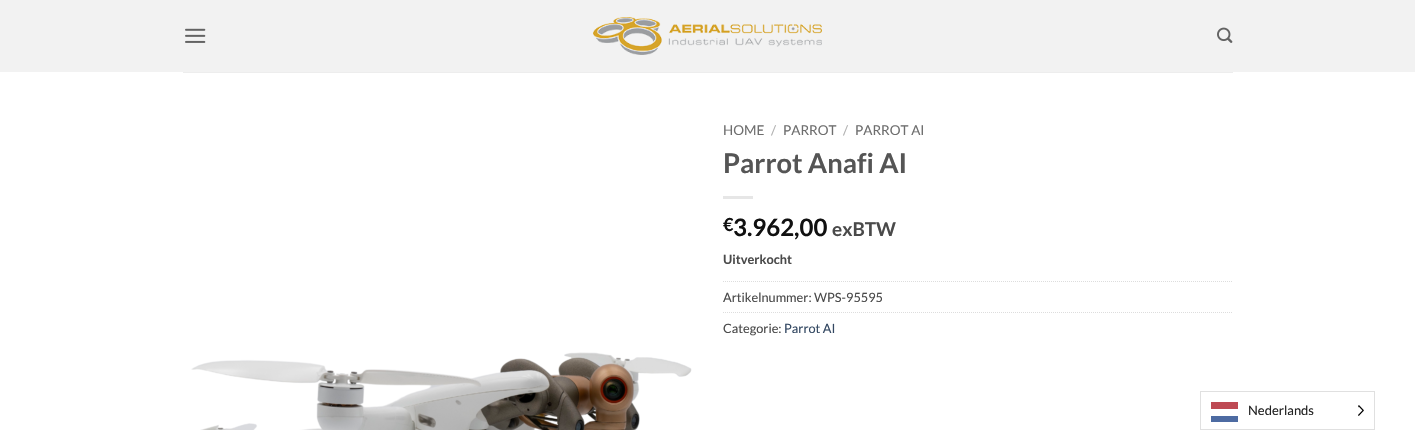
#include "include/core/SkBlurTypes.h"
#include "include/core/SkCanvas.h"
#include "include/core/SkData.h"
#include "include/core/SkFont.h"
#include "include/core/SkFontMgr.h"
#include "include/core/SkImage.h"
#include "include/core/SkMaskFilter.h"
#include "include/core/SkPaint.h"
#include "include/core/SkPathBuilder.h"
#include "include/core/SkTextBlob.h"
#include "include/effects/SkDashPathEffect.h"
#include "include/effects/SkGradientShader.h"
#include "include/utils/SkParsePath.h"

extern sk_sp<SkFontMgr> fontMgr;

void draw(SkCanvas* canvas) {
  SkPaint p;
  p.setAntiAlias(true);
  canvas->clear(SK_ColorWHITE);
  p.setColor(SkColorSetRGB(242, 242, 242));
  canvas->drawRect(SkRect::MakeLTRB(0, 0, 1415, 72), p);
  canvas->drawImageRect(SkImages::DeferredFromEncodedData(SkData::MakeFromFileName("images/1.png")), SkRect::MakeLTRB(185, 28, 206, 43), SkSamplingOptions());
  canvas->drawImageRect(SkImages::DeferredFromEncodedData(SkData::MakeFromFileName("images/2.png")), SkRect::MakeLTRB(593, 17, 822, 55), SkSamplingOptions());
  canvas->drawImageRect(SkImages::DeferredFromEncodedData(SkData::MakeFromFileName("images/3.png")), SkRect::MakeLTRB(1217, 27, 1233, 43), SkSamplingOptions());
  p.setColor(SkColorSetRGB(237, 237, 237));
  canvas->drawRect(SkRect::MakeLTRB(183, 72, 1233, 73), p);
  p.setColor(SkColorSetRGB(230, 230, 230));
  canvas->drawRect(SkRect::MakeLTRB(723, 196, 753, 199), p);
  p.setStyle(SkPaint::kStroke_Style);
  p.setStrokeWidth(1);
  p.setColor(SkColorSetRGB(221, 221, 221));
  p.setPathEffect(SkDashPathEffect::Make({{1, 1}}, 0));
  canvas->drawPath(SkPathBuilder().moveTo(723, 281.5f).lineTo(1233, 281.5f).detach(), p);
  p.setPathEffect(nullptr);
  p.setPathEffect(SkDashPathEffect::Make({{1, 1}}, 0));
  canvas->drawPath(SkPathBuilder().moveTo(723, 312.5f).lineTo(1233, 312.5f).detach(), p);
  p.setPathEffect(nullptr);
  canvas->drawImageRect(SkImages::DeferredFromEncodedData(SkData::MakeFromFileName("images/4.png")), SkRect::MakeLTRB(191, 352, 692, 430), SkSamplingOptions());
  p.setColor(SkColorSetRGB(224, 224, 224));
  canvas->drawRect(SkRect::MakeLTRB(1200.5f, 391.5f, 1374.5f, 429.5f), p);
  p.setStyle(SkPaint::kFill_Style);
  p.setColor(SkColorSetRGB(190, 73, 83));
  canvas->drawRect(SkRect::MakeLTRB(1211, 402, 1238, 409), p);
  p.setColor(SkColorSetRGB(77, 107, 162));
  canvas->drawRect(SkRect::MakeLTRB(1211, 416, 1238, 422), p);
  canvas->drawImageRect(SkImages::DeferredFromEncodedData(SkData::MakeFromFileName("images/5.png")), SkRect::MakeLTRB(1358, 405, 1364, 416), SkSamplingOptions());
  SkFont font1(fontMgr->matchFamilyStyle("Lato", SkFontStyle::Normal()), 13.5f);
  font1.setSubpixel(true);
  p.setColor(SkColorSetRGB(110, 110, 110));
  canvas->drawString("HOME", 723, 135, font1, p);
  p.setColor(SkColorSetRGB(178, 178, 178));
  canvas->drawString("/", 771, 135, font1, p);
  p.setColor(SkColorSetRGB(110, 110, 110));
  canvas->drawString("PARROT", 783, 135, font1, p);
  p.setColor(SkColorSetRGB(178, 178, 178));
  canvas->drawString("/", 843, 135, font1, p);
  p.setColor(SkColorSetRGB(110, 110, 110));
  canvas->drawString("PARROT AI", 855, 135, font1, p);
  SkFont font2(fontMgr->matchFamilyStyle("Lato", SkFontStyle::Bold()), 27.25f);
  font2.setSubpixel(true);
  p.setColor(SkColorSetRGB(85, 85, 85));
  canvas->drawString("Parrot Anafi AI", 723, 173, font2, p);
  SkFont font3(fontMgr->matchFamilyStyle("Lato", SkFontStyle::Bold()), 18);
  font3.setSubpixel(true);
  p.setColor(SkColorSetRGB(17, 17, 17));
  canvas->drawString("€", 723, 231, font3, p);
  SkFont font4(fontMgr->matchFamilyStyle("Lato", SkFontStyle::Bold()), 24);
  font4.setSubpixel(true);
  canvas->drawString("3.962,00", 733, 236, font4, p);
  SkFont font5(fontMgr->matchFamilyStyle("Lato", SkFontStyle::Bold()), 19);
  font5.setSubpixel(true);
  p.setColor(SkColorSetRGB(74, 74, 74));
  canvas->drawString("exBTW", 832, 236, font5, p);
  SkFont font6(fontMgr->matchFamilyStyle("Lato", SkFontStyle::Bold()), 12.75f);
  font6.setSubpixel(true);
  canvas->drawString("Uitverkocht", 723, 264, font6, p);
  SkFont font7(fontMgr->matchFamilyStyle("Lato", SkFontStyle::Normal()), 12.75f);
  font7.setSubpixel(true);
  canvas->drawString("Artikelnummer: WPS-95595", 723, 302, font7, p);
  canvas->drawString("Categorie:", 723, 333, font7, p);
  p.setColor(SkColorSetRGB(51, 72, 98));
  canvas->drawString("Parrot AI", 784, 333, font7, p);
  SkFont font8(fontMgr->matchFamilyStyle("Lato", SkFontStyle::Normal()), 13);
  font8.setSubpixel(true);
  p.setColor(SkColorSetRGB(34, 34, 34));
  canvas->drawString("Nederlands", 1248, 415, font8, p);
}
